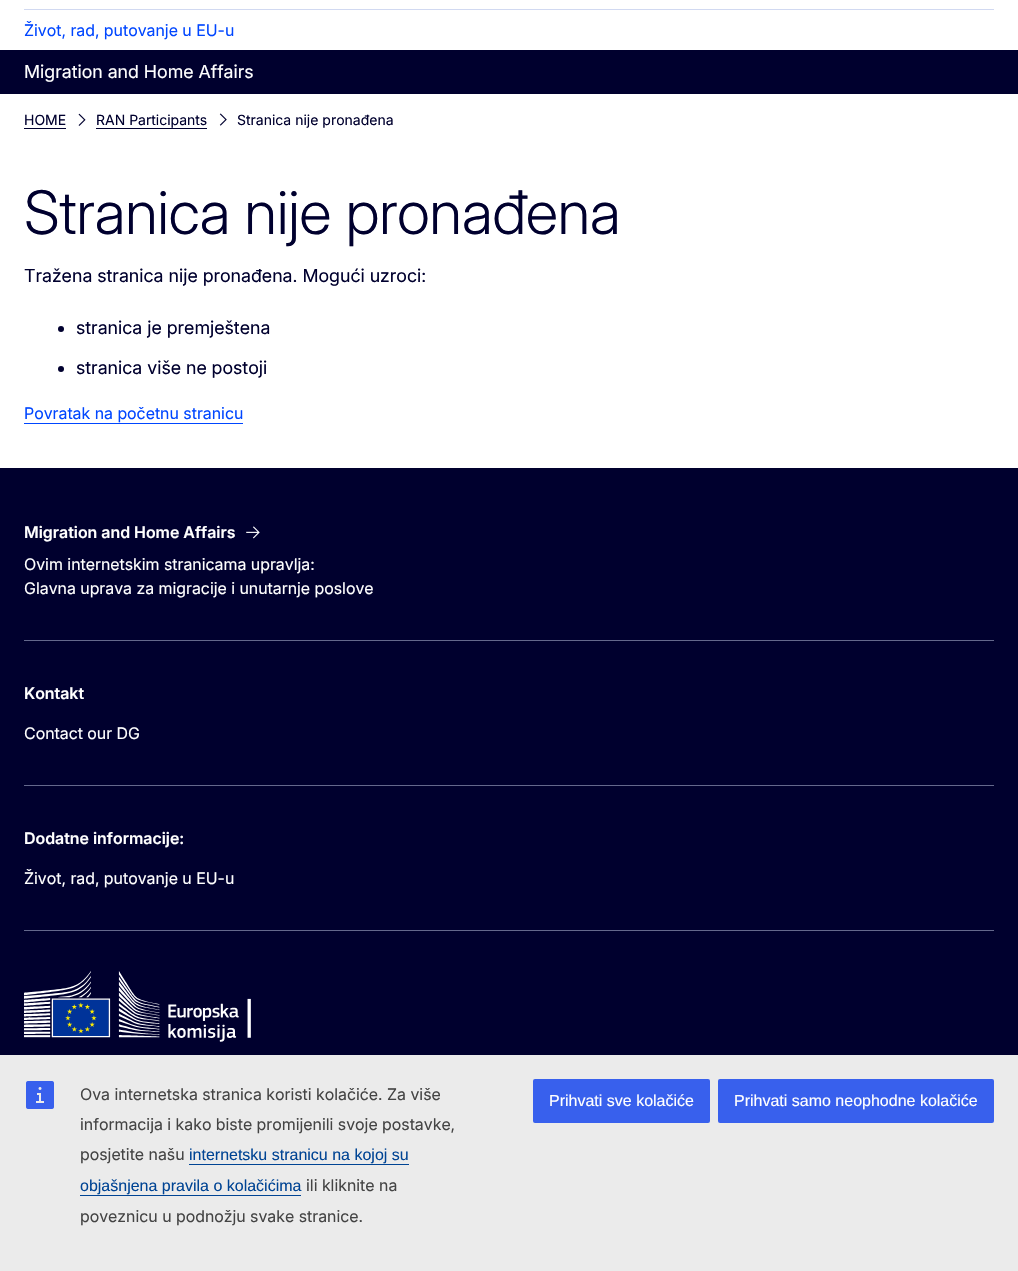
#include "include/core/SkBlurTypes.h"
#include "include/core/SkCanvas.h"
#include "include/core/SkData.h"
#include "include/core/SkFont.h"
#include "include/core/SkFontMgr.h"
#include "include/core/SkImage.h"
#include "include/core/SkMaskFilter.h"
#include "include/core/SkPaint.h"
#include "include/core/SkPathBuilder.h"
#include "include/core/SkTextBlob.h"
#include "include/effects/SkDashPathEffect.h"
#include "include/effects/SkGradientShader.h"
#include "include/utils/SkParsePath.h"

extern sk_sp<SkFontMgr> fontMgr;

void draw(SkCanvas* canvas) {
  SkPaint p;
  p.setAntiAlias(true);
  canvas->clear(SK_ColorWHITE);
  p.setColor(SkColorSetRGB(209, 217, 241));
  canvas->drawRect(SkRect::MakeLTRB(24, 9, 994, 10), p);
  p.setColor(SkColorSetRGB(0, 0, 46));
  canvas->drawRect(SkRect::MakeLTRB(0, 50, 1018, 94), p);
  canvas->drawRect(SkRect::MakeLTRB(24, 128, 66, 129), p);
  canvas->drawImageRect(SkImages::DeferredFromEncodedData(SkData::MakeFromFileName("images/1.png")), SkRect::MakeLTRB(78, 113, 86, 126), SkSamplingOptions());
  canvas->drawRect(SkRect::MakeLTRB(96, 128, 207, 129), p);
  canvas->drawImageRect(SkImages::DeferredFromEncodedData(SkData::MakeFromFileName("images/2.png")), SkRect::MakeLTRB(219, 113, 227, 126), SkSamplingOptions());
  canvas->drawCircle(61, 329, 3, p);
  canvas->drawCircle(61, 369, 3, p);
  p.setColor(SkColorSetRGB(0, 70, 255));
  canvas->drawRect(SkRect::MakeLTRB(24, 423, 243, 424), p);
  p.setColor(SkColorSetRGB(0, 0, 46));
  canvas->drawRect(SkRect::MakeLTRB(0, 468, 1018, 1055), p);
  canvas->drawImageRect(SkImages::DeferredFromEncodedData(SkData::MakeFromFileName("images/3.png")), SkRect::MakeLTRB(246, 526, 260, 539), SkSamplingOptions());
  p.setColor(SkColorSetRGB(100, 104, 140));
  canvas->drawRect(SkRect::MakeLTRB(24, 640, 994, 641), p);
  canvas->drawRect(SkRect::MakeLTRB(24, 785, 994, 786), p);
  canvas->drawRect(SkRect::MakeLTRB(24, 930, 994, 931), p);
  canvas->drawImageRect(SkImages::DeferredFromEncodedData(SkData::MakeFromFileName("images/4.png")), SkRect::MakeLTRB(24, 971, 251, 1042), SkSamplingOptions());
  p.setColor(SkColorSetRGB(235, 235, 235));
  canvas->drawRect(SkRect::MakeLTRB(0, 1055, 1018, 1271), p);
  canvas->drawImageRect(SkImages::DeferredFromEncodedData(SkData::MakeFromFileName("images/5.png")), SkRect::MakeLTRB(26, 1081, 54, 1109), SkSamplingOptions());
  p.setColor(SkColorSetRGB(0, 68, 148));
  canvas->drawRect(SkRect::MakeLTRB(189, 1164, 409, 1165), p);
  canvas->drawRect(SkRect::MakeLTRB(80, 1195, 301, 1196), p);
  p.setColor(SkColorSetRGB(56, 96, 237));
  canvas->drawRoundRect(SkRect::MakeLTRB(533, 1079, 710, 1123), 2, 2, p);
  canvas->drawRoundRect(SkRect::MakeLTRB(718, 1079, 994, 1123), 2, 2, p);
  SkFont font1(fontMgr->matchFamilyStyle("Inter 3", SkFontStyle::Normal()), 16);
  font1.setSubpixel(true);
  p.setColor(SkColorSetRGB(0, 70, 255));
  canvas->drawString("Život, rad, putovanje u EU-u", 24, 36, font1, p);
  SkFont font2(fontMgr->matchFamilyStyle("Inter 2", SkFontStyle::Normal()), 18);
  font2.setSubpixel(true);
  p.setColor(SK_ColorWHITE);
  canvas->drawString("Migration and Home Affairs", 24, 78, font2, p);
  SkFont font3(fontMgr->matchFamilyStyle("Inter", SkFontStyle::Normal()), 14);
  font3.setSubpixel(true);
  p.setColor(SkColorSetRGB(0, 0, 46));
  canvas->drawString("HOME", 24, 125, font3, p);
  canvas->drawString("RAN Participants", 96, 125, font3, p);
  canvas->drawString("Stranica nije pronađena", 237, 125, font3, p);
  SkFont font4(fontMgr->matchFamilyStyle("Inter", SkFontStyle(300, SkFontStyle::kNormal_Width, SkFontStyle::kUpright_Slant)), 60);
  font4.setSubpixel(true);
  canvas->drawString("Stranica nije pronađena", 24, 234, font4, p);
  canvas->drawString("Tražena stranica nije pronađena. Mogući uzroci:", 24, 282, font2, p);
  canvas->drawString("stranica je premještena", 76, 334, font2, p);
  canvas->drawString("stranica više ne postoji", 76, 374, font2, p);
  p.setColor(SkColorSetRGB(0, 70, 255));
  canvas->drawString("Povratak na početnu stranicu", 24, 419, font1, p);
  SkFont font5(fontMgr->matchFamilyStyle("Inter", SkFontStyle(600, SkFontStyle::kNormal_Width, SkFontStyle::kUpright_Slant)), 16);
  font5.setSubpixel(true);
  p.setColor(SK_ColorWHITE);
  canvas->drawString("Migration and Home Affairs", 24, 538, font5, p);
  canvas->drawString("Ovim internetskim stranicama upravlja:", 24, 570, font1, p);
  canvas->drawString("Glavna uprava za migracije i unutarnje poslove", 24, 594, font1, p);
  canvas->drawString("Kontakt", 24, 699, font5, p);
  canvas->drawString("Contact our DG", 24, 739, font1, p);
  canvas->drawString("Dodatne informacije:", 24, 844, font5, p);
  canvas->drawString("Život, rad, putovanje u EU-u", 24, 884, font1, p);
  p.setColor(SkColorSetRGB(68, 68, 68));
  canvas->drawString("Ova internetska stranica koristi kolačiće. Za više", 80, 1100, font1, p);
  canvas->drawString("informacija i kako biste promijenili svoje postavke,", 80, 1130, font1, p);
  canvas->drawString("posjetite našu", 80, 1160, font1, p);
  SkFont font6(fontMgr->matchFamilyStyle("Liberation Sans", SkFontStyle::Normal()), 16);
  font6.setSubpixel(true);
  p.setColor(SkColorSetRGB(0, 68, 148));
  canvas->drawString("internetsku stranicu na kojoj su", 189, 1160, font6, p);
  canvas->drawString("objašnjena pravila o kolačićima", 80, 1191, font6, p);
  p.setColor(SkColorSetRGB(68, 68, 68));
  canvas->drawString("ili kliknite na", 306, 1191, font1, p);
  canvas->drawString("poveznicu u podnožju svake stranice.", 80, 1222, font1, p);
  p.setColor(SK_ColorWHITE);
  canvas->drawString("Prihvati sve kolačiće", 549, 1106, font6, p);
  canvas->drawString("Prihvati samo neophodne kolačiće", 734, 1106, font6, p);
}
